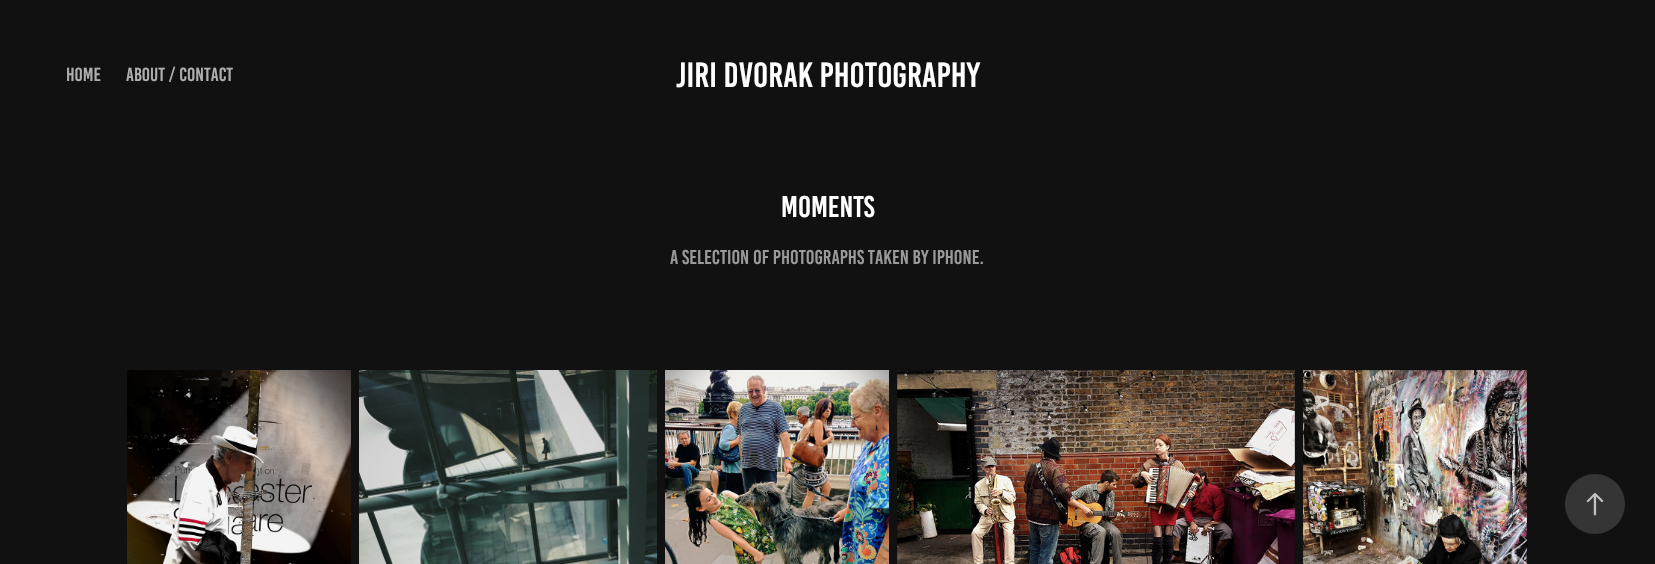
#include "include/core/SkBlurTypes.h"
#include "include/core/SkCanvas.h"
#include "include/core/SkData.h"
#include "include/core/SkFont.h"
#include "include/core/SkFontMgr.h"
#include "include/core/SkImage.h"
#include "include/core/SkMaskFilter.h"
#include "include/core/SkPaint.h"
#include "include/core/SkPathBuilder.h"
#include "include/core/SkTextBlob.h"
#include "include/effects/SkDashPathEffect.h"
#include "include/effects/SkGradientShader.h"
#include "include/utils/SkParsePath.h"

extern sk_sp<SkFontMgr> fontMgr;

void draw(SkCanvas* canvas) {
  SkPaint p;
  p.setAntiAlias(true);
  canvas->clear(SkColorSetRGB(17, 17, 17));
  canvas->drawImageRect(SkImages::DeferredFromEncodedData(SkData::MakeFromFileName("images/1.png")), SkRect::MakeLTRB(127, 370, 351, 564), SkSamplingOptions());
  canvas->drawImageRect(SkImages::DeferredFromEncodedData(SkData::MakeFromFileName("images/2.png")), SkRect::MakeLTRB(359, 370, 657, 564), SkSamplingOptions());
  canvas->drawImageRect(SkImages::DeferredFromEncodedData(SkData::MakeFromFileName("images/3.png")), SkRect::MakeLTRB(665, 370, 889, 564), SkSamplingOptions());
  canvas->drawImageRect(SkImages::DeferredFromEncodedData(SkData::MakeFromFileName("images/4.png")), SkRect::MakeLTRB(897, 370, 1295, 564), SkSamplingOptions());
  canvas->drawImageRect(SkImages::DeferredFromEncodedData(SkData::MakeFromFileName("images/5.png")), SkRect::MakeLTRB(1303, 370, 1527, 564), SkSamplingOptions());
  p.setColor(SkColorSetRGB(53, 53, 53));
  canvas->drawCircle(1595, 504, 30, p);
  canvas->drawImageRect(SkImages::DeferredFromEncodedData(SkData::MakeFromFileName("images/6.png")), SkRect::MakeLTRB(1586, 493, 1604, 516), SkSamplingOptions());
  SkFont font1(fontMgr->matchFamilyStyle("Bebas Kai", SkFontStyle::Normal()), 19);
  font1.setSubpixel(true);
  p.setColor(SkColorSetRGB(174, 174, 174));
  canvas->drawString("HOME", 66, 81, font1, p);
  canvas->drawString("ABOUT / CONTACT", 126, 81, font1, p);
  SkFont font2(fontMgr->matchFamilyStyle("Bebas Kai", SkFontStyle::Normal()), 35);
  font2.setSubpixel(true);
  p.setColor(SK_ColorWHITE);
  canvas->drawString("JIRI DVORAK PHOTOGRAPHY", 676, 87, font2, p);
  SkFont font3(fontMgr->matchFamilyStyle("Bebas Kai", SkFontStyle::Normal()), 30);
  font3.setSubpixel(true);
  canvas->drawString("Moments", 781, 217, font3, p);
  SkFont font4(fontMgr->matchFamilyStyle("Bebas Kai", SkFontStyle::Normal()), 20);
  font4.setSubpixel(true);
  p.setColor(SkColorSetRGB(153, 153, 153));
  canvas->drawString("A selection of photographs taken by iPhone.", 670, 264, font4, p);
}
